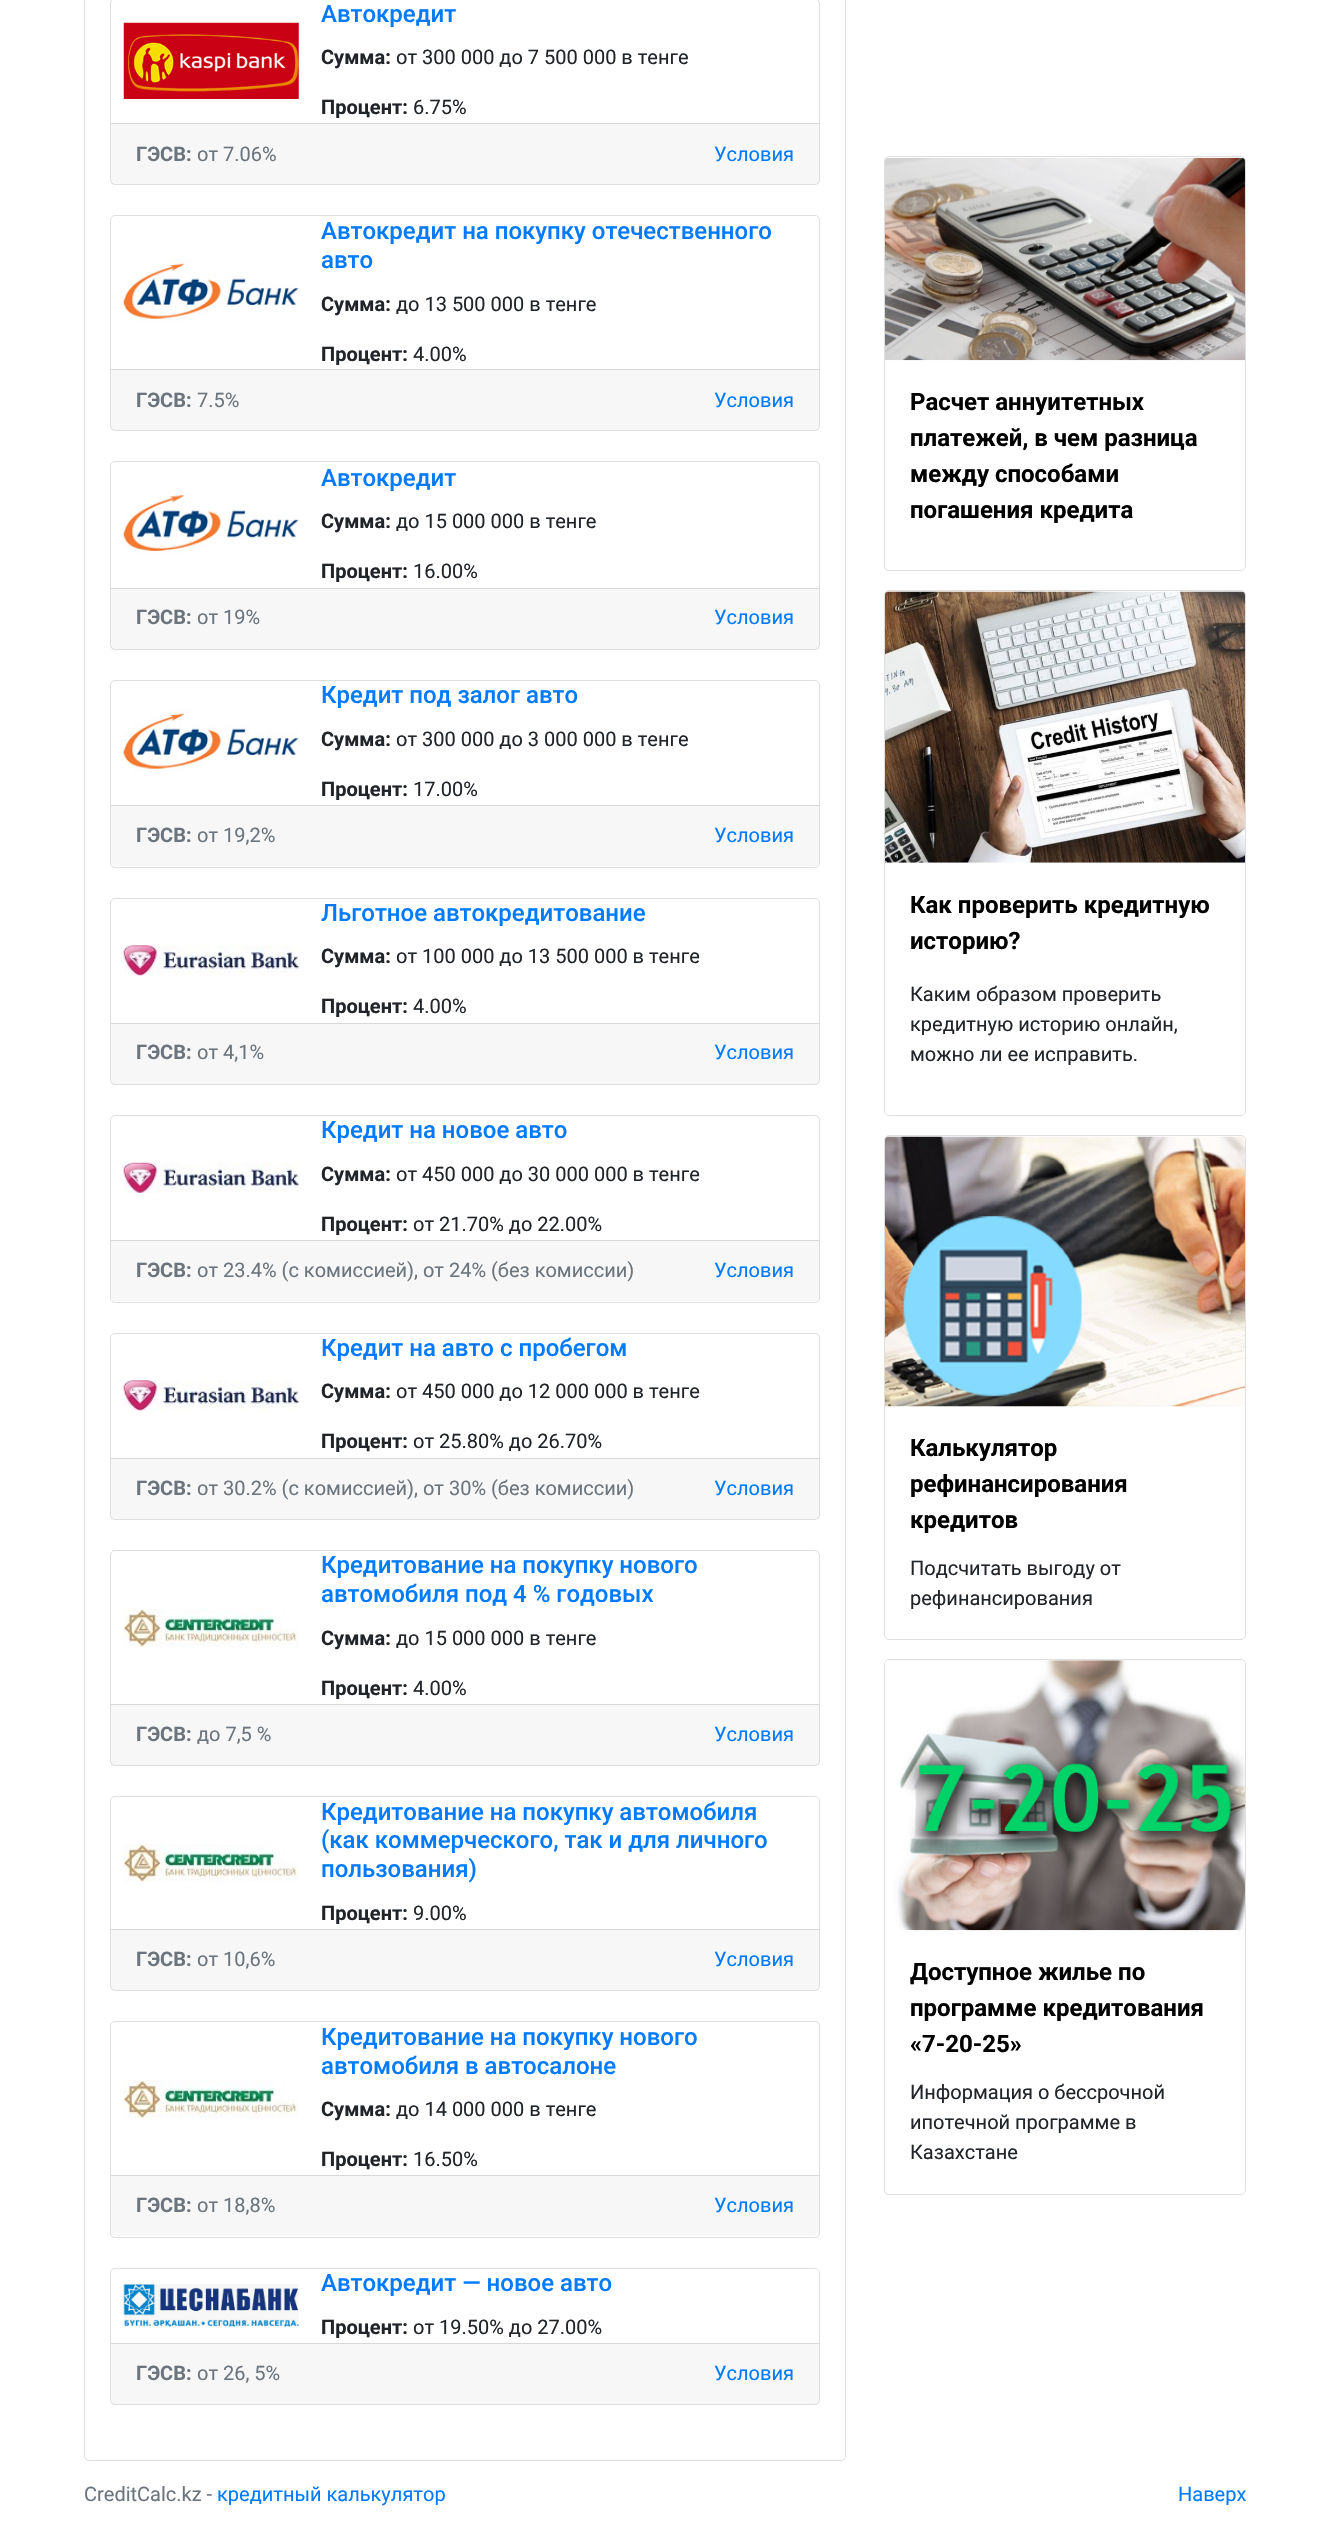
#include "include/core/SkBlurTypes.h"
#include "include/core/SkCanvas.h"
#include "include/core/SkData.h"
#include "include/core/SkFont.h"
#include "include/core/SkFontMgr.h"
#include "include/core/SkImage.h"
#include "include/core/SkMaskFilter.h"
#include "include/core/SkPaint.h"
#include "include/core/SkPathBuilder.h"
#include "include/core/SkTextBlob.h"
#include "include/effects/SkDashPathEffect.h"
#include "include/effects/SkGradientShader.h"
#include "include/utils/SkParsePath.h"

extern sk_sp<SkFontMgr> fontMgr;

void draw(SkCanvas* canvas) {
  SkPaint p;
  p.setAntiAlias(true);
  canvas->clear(SK_ColorWHITE);
  p.setStyle(SkPaint::kStroke_Style);
  p.setStrokeWidth(1);
  p.setColor(SkColorSetRGB(223, 223, 223));
  canvas->drawRoundRect(SkRect::MakeLTRB(84.5f, -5.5f, 845.5f, 2460.5f), 4.5f, 4.5f, p);
  canvas->drawRoundRect(SkRect::MakeLTRB(110.5f, -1.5f, 819.5f, 184.5f), 4.5f, 4.5f, p);
  canvas->drawImageRect(SkImages::DeferredFromEncodedData(SkData::MakeFromFileName("images/1.png")), SkRect::MakeLTRB(123, 22, 299, 99), SkSamplingOptions());
  p.setStyle(SkPaint::kFill_Style);
  p.setColor(SkColorSetARGB(8, 0, 0, 0));
  canvas->drawRect(SkRect::MakeLTRB(111, 124, 819, 184), p);
  p.setColor(SkColorSetRGB(216, 216, 216));
  canvas->drawRect(SkRect::MakeLTRB(111, 123, 819, 124), p);
  p.setStyle(SkPaint::kStroke_Style);
  p.setColor(SkColorSetRGB(223, 223, 223));
  canvas->drawRoundRect(SkRect::MakeLTRB(110.5f, 215.5f, 819.5f, 430.5f), 4.5f, 4.5f, p);
  canvas->drawImageRect(SkImages::DeferredFromEncodedData(SkData::MakeFromFileName("images/2.png")), SkRect::MakeLTRB(123, 258, 299, 323), SkSamplingOptions());
  p.setStyle(SkPaint::kFill_Style);
  p.setColor(SkColorSetARGB(8, 0, 0, 0));
  canvas->drawRect(SkRect::MakeLTRB(111, 370, 819, 430), p);
  p.setColor(SkColorSetRGB(216, 216, 216));
  canvas->drawRect(SkRect::MakeLTRB(111, 369, 819, 370), p);
  p.setStyle(SkPaint::kStroke_Style);
  p.setColor(SkColorSetRGB(223, 223, 223));
  canvas->drawRoundRect(SkRect::MakeLTRB(110.5f, 461.5f, 819.5f, 649.5f), 4.5f, 4.5f, p);
  canvas->drawImageRect(SkImages::DeferredFromEncodedData(SkData::MakeFromFileName("images/3.png")), SkRect::MakeLTRB(123, 489, 299, 555), SkSamplingOptions());
  p.setStyle(SkPaint::kFill_Style);
  p.setColor(SkColorSetARGB(8, 0, 0, 0));
  canvas->drawRect(SkRect::MakeLTRB(111, 589, 819, 649), p);
  p.setColor(SkColorSetRGB(216, 216, 216));
  canvas->drawRect(SkRect::MakeLTRB(111, 588, 819, 589), p);
  p.setStyle(SkPaint::kStroke_Style);
  p.setColor(SkColorSetRGB(223, 223, 223));
  canvas->drawRoundRect(SkRect::MakeLTRB(110.5f, 680.5f, 819.5f, 867.5f), 4.5f, 4.5f, p);
  canvas->drawImageRect(SkImages::DeferredFromEncodedData(SkData::MakeFromFileName("images/4.png")), SkRect::MakeLTRB(123, 708, 299, 773), SkSamplingOptions());
  p.setStyle(SkPaint::kFill_Style);
  p.setColor(SkColorSetRGB(247, 247, 247));
  canvas->drawPath(SkPathBuilder().moveTo(111, 805).lineTo(819, 805).lineTo(819, 862).cubicTo(819, 864, 817, 866, 815, 866).lineTo(115, 866).cubicTo(113, 866, 111, 864, 111, 862).close().detach(), p);
  p.setColor(SkColorSetRGB(216, 216, 216));
  canvas->drawRect(SkRect::MakeLTRB(111, 805, 819, 806), p);
  p.setStyle(SkPaint::kStroke_Style);
  p.setColor(SkColorSetRGB(223, 223, 223));
  canvas->drawRoundRect(SkRect::MakeLTRB(110.5f, 898.5f, 819.5f, 1084.5f), 4.5f, 4.5f, p);
  canvas->drawImageRect(SkImages::DeferredFromEncodedData(SkData::MakeFromFileName("images/5.png")), SkRect::MakeLTRB(123, 945, 299, 976), SkSamplingOptions());
  p.setStyle(SkPaint::kFill_Style);
  p.setColor(SkColorSetARGB(8, 0, 0, 0));
  canvas->drawRect(SkRect::MakeLTRB(111, 1024, 819, 1084), p);
  p.setColor(SkColorSetRGB(216, 216, 216));
  canvas->drawRect(SkRect::MakeLTRB(111, 1023, 819, 1024), p);
  p.setStyle(SkPaint::kStroke_Style);
  p.setColor(SkColorSetRGB(223, 223, 223));
  canvas->drawRoundRect(SkRect::MakeLTRB(110.5f, 1115.5f, 819.5f, 1302.5f), 4.5f, 4.5f, p);
  canvas->drawImageRect(SkImages::DeferredFromEncodedData(SkData::MakeFromFileName("images/6.png")), SkRect::MakeLTRB(123, 1162, 299, 1193), SkSamplingOptions());
  p.setStyle(SkPaint::kFill_Style);
  p.setColor(SkColorSetRGB(247, 247, 247));
  canvas->drawPath(SkPathBuilder().moveTo(111, 1240).lineTo(819, 1240).lineTo(819, 1297).cubicTo(819, 1299, 817, 1301, 815, 1301).lineTo(115, 1301).cubicTo(113, 1301, 111, 1299, 111, 1297).close().detach(), p);
  p.setColor(SkColorSetRGB(216, 216, 216));
  canvas->drawRect(SkRect::MakeLTRB(111, 1240, 819, 1241), p);
  p.setStyle(SkPaint::kStroke_Style);
  p.setColor(SkColorSetRGB(223, 223, 223));
  canvas->drawRoundRect(SkRect::MakeLTRB(110.5f, 1333.5f, 819.5f, 1519.5f), 4.5f, 4.5f, p);
  canvas->drawImageRect(SkImages::DeferredFromEncodedData(SkData::MakeFromFileName("images/5.png")), SkRect::MakeLTRB(123, 1380, 299, 1411), SkSamplingOptions());
  p.setStyle(SkPaint::kFill_Style);
  p.setColor(SkColorSetARGB(8, 0, 0, 0));
  canvas->drawRect(SkRect::MakeLTRB(111, 1459, 819, 1519), p);
  p.setColor(SkColorSetRGB(216, 216, 216));
  canvas->drawRect(SkRect::MakeLTRB(111, 1458, 819, 1459), p);
  p.setStyle(SkPaint::kStroke_Style);
  p.setColor(SkColorSetRGB(223, 223, 223));
  canvas->drawRoundRect(SkRect::MakeLTRB(110.5f, 1550.5f, 819.5f, 1765.5f), 4.5f, 4.5f, p);
  canvas->drawImageRect(SkImages::DeferredFromEncodedData(SkData::MakeFromFileName("images/7.png")), SkRect::MakeLTRB(123, 1609, 299, 1647), SkSamplingOptions());
  p.setStyle(SkPaint::kFill_Style);
  p.setColor(SkColorSetARGB(8, 0, 0, 0));
  canvas->drawRect(SkRect::MakeLTRB(111, 1705, 819, 1765), p);
  p.setColor(SkColorSetRGB(216, 216, 216));
  canvas->drawRect(SkRect::MakeLTRB(111, 1704, 819, 1705), p);
  p.setStyle(SkPaint::kStroke_Style);
  p.setColor(SkColorSetRGB(223, 223, 223));
  canvas->drawRoundRect(SkRect::MakeLTRB(110.5f, 1796.5f, 819.5f, 1990.5f), 4.5f, 4.5f, p);
  canvas->drawImageRect(SkImages::DeferredFromEncodedData(SkData::MakeFromFileName("images/7.png")), SkRect::MakeLTRB(123, 1844, 299, 1882), SkSamplingOptions());
  p.setStyle(SkPaint::kFill_Style);
  p.setColor(SkColorSetARGB(8, 0, 0, 0));
  canvas->drawRect(SkRect::MakeLTRB(111, 1930, 819, 1990), p);
  p.setColor(SkColorSetRGB(216, 216, 216));
  canvas->drawRect(SkRect::MakeLTRB(111, 1929, 819, 1930), p);
  p.setStyle(SkPaint::kStroke_Style);
  p.setColor(SkColorSetRGB(223, 223, 223));
  canvas->drawRoundRect(SkRect::MakeLTRB(110.5f, 2021.5f, 819.5f, 2237.5f), 4.5f, 4.5f, p);
  canvas->drawImageRect(SkImages::DeferredFromEncodedData(SkData::MakeFromFileName("images/8.png")), SkRect::MakeLTRB(123, 2080, 299, 2118), SkSamplingOptions());
  p.setStyle(SkPaint::kFill_Style);
  p.setColor(SkColorSetRGB(247, 247, 247));
  canvas->drawPath(SkPathBuilder().moveTo(111, 2175).lineTo(819, 2175).lineTo(819, 2232).cubicTo(819, 2234, 817, 2236, 815, 2236).lineTo(115, 2236).cubicTo(113, 2236, 111, 2234, 111, 2232).close().detach(), p);
  p.setColor(SkColorSetRGB(216, 216, 216));
  canvas->drawRect(SkRect::MakeLTRB(111, 2175, 819, 2176), p);
  p.setStyle(SkPaint::kStroke_Style);
  p.setColor(SkColorSetRGB(223, 223, 223));
  canvas->drawRoundRect(SkRect::MakeLTRB(110.5f, 2268.5f, 819.5f, 2404.5f), 4.5f, 4.5f, p);
  canvas->drawImageRect(SkImages::DeferredFromEncodedData(SkData::MakeFromFileName("images/9.png")), SkRect::MakeLTRB(123, 2284, 299, 2327), SkSamplingOptions());
  p.setStyle(SkPaint::kFill_Style);
  p.setColor(SkColorSetARGB(8, 0, 0, 0));
  canvas->drawRect(SkRect::MakeLTRB(111, 2344, 819, 2404), p);
  p.setColor(SkColorSetRGB(216, 216, 216));
  canvas->drawRect(SkRect::MakeLTRB(111, 2343, 819, 2344), p);
  p.setStyle(SkPaint::kStroke_Style);
  p.setColor(SkColorSetRGB(223, 223, 223));
  canvas->drawRoundRect(SkRect::MakeLTRB(884.5f, 156.5f, 1245.5f, 570.5f), 4.5f, 4.5f, p);
  canvas->drawImageRect(SkImages::DeferredFromEncodedData(SkData::MakeFromFileName("images/10.png")), SkRect::MakeLTRB(885, 157, 1245, 361), SkSamplingOptions());
  canvas->drawRoundRect(SkRect::MakeLTRB(884.5f, 590.5f, 1245.5f, 1115.5f), 4.5f, 4.5f, p);
  canvas->drawImageRect(SkImages::DeferredFromEncodedData(SkData::MakeFromFileName("images/11.png")), SkRect::MakeLTRB(885, 591, 1245, 863), SkSamplingOptions());
  canvas->drawRoundRect(SkRect::MakeLTRB(884.5f, 1135.5f, 1245.5f, 1639.5f), 4.5f, 4.5f, p);
  canvas->drawImageRect(SkImages::DeferredFromEncodedData(SkData::MakeFromFileName("images/12.png")), SkRect::MakeLTRB(885, 1136, 1245, 1407), SkSamplingOptions());
  canvas->drawRoundRect(SkRect::MakeLTRB(884.5f, 1659.5f, 1245.5f, 2194.5f), 4.5f, 4.5f, p);
  canvas->drawImageRect(SkImages::DeferredFromEncodedData(SkData::MakeFromFileName("images/13.png")), SkRect::MakeLTRB(885, 1660, 1245, 1931), SkSamplingOptions());
  SkFont font1(fontMgr->matchFamilyStyle("Roboto", SkFontStyle(500, SkFontStyle::kNormal_Width, SkFontStyle::kUpright_Slant)), 24);
  font1.setSubpixel(true);
  p.setStyle(SkPaint::kFill_Style);
  p.setColor(SkColorSetRGB(0, 123, 255));
  canvas->drawString("Автокредит", 321, 22, font1, p);
  SkFont font2(fontMgr->matchFamilyStyle("Roboto", SkFontStyle::Bold()), 20);
  font2.setSubpixel(true);
  p.setColor(SkColorSetRGB(33, 37, 41));
  canvas->drawString("Сумма:", 321, 64, font2, p);
  SkFont font3(fontMgr->matchFamilyStyle("Roboto", SkFontStyle::Normal()), 20);
  font3.setSubpixel(true);
  canvas->drawString("от 300 000 до 7 500 000 в тенге", 396, 64, font3, p);
  canvas->drawString("Процент:", 321, 114, font2, p);
  canvas->drawString("6.75%", 413, 114, font3, p);
  p.setColor(SkColorSetRGB(108, 117, 125));
  canvas->drawString("ГЭСВ:", 136, 161, font2, p);
  canvas->drawString("от 7.06%", 197, 161, font3, p);
  p.setColor(SkColorSetRGB(0, 123, 255));
  canvas->drawString("Условия", 714, 161, font3, p);
  canvas->drawString("Автокредит на покупку отечественного", 321, 239, font1, p);
  canvas->drawString("авто", 321, 268, font1, p);
  p.setColor(SkColorSetRGB(33, 37, 41));
  canvas->drawString("Сумма:", 321, 311, font2, p);
  canvas->drawString("до 13 500 000 в тенге", 396, 311, font3, p);
  canvas->drawString("Процент:", 321, 361, font2, p);
  canvas->drawString("4.00%", 413, 361, font3, p);
  p.setColor(SkColorSetRGB(108, 117, 125));
  canvas->drawString("ГЭСВ:", 136, 407, font2, p);
  canvas->drawString("7.5%", 197, 407, font3, p);
  p.setColor(SkColorSetRGB(0, 123, 255));
  canvas->drawString("Условия", 714, 407, font3, p);
  canvas->drawString("Автокредит", 321, 486, font1, p);
  p.setColor(SkColorSetRGB(33, 37, 41));
  canvas->drawString("Сумма:", 321, 528, font2, p);
  canvas->drawString("до 15 000 000 в тенге", 396, 528, font3, p);
  canvas->drawString("Процент:", 321, 578, font2, p);
  canvas->drawString("16.00%", 413, 578, font3, p);
  p.setColor(SkColorSetRGB(108, 117, 125));
  canvas->drawString("ГЭСВ:", 136, 624, font2, p);
  canvas->drawString("от 19%", 197, 624, font3, p);
  p.setColor(SkColorSetRGB(0, 123, 255));
  canvas->drawString("Условия", 714, 624, font3, p);
  canvas->drawString("Кредит под залог авто", 321, 703, font1, p);
  p.setColor(SkColorSetRGB(33, 37, 41));
  canvas->drawString("Сумма:", 321, 746, font2, p);
  canvas->drawString("от 300 000 до 3 000 000 в тенге", 396, 746, font3, p);
  canvas->drawString("Процент:", 321, 796, font2, p);
  canvas->drawString("17.00%", 413, 796, font3, p);
  p.setColor(SkColorSetRGB(108, 117, 125));
  canvas->drawString("ГЭСВ:", 136, 842, font2, p);
  canvas->drawString("от 19,2%", 197, 842, font3, p);
  p.setColor(SkColorSetRGB(0, 123, 255));
  canvas->drawString("Условия", 714, 842, font3, p);
  canvas->drawString("Льготное автокредитование", 321, 921, font1, p);
  p.setColor(SkColorSetRGB(33, 37, 41));
  canvas->drawString("Сумма:", 321, 963, font2, p);
  canvas->drawString("от 100 000 до 13 500 000 в тенге", 396, 963, font3, p);
  canvas->drawString("Процент:", 321, 1013, font2, p);
  canvas->drawString("4.00%", 413, 1013, font3, p);
  p.setColor(SkColorSetRGB(108, 117, 125));
  canvas->drawString("ГЭСВ:", 136, 1059, font2, p);
  canvas->drawString("от 4,1%", 197, 1059, font3, p);
  p.setColor(SkColorSetRGB(0, 123, 255));
  canvas->drawString("Условия", 714, 1059, font3, p);
  canvas->drawString("Кредит на новое авто", 321, 1138, font1, p);
  p.setColor(SkColorSetRGB(33, 37, 41));
  canvas->drawString("Сумма:", 321, 1181, font2, p);
  canvas->drawString("от 450 000 до 30 000 000 в тенге", 396, 1181, font3, p);
  canvas->drawString("Процент:", 321, 1231, font2, p);
  canvas->drawString("от 21.70% до 22.00%", 413, 1231, font3, p);
  p.setColor(SkColorSetRGB(108, 117, 125));
  canvas->drawString("ГЭСВ:", 136, 1277, font2, p);
  canvas->drawString("от 23.4% (с комиссией), от 24% (без комиссии)", 197, 1277, font3, p);
  p.setColor(SkColorSetRGB(0, 123, 255));
  canvas->drawString("Условия", 714, 1277, font3, p);
  canvas->drawString("Кредит на авто с пробегом", 321, 1356, font1, p);
  p.setColor(SkColorSetRGB(33, 37, 41));
  canvas->drawString("Сумма:", 321, 1398, font2, p);
  canvas->drawString("от 450 000 до 12 000 000 в тенге", 396, 1398, font3, p);
  canvas->drawString("Процент:", 321, 1448, font2, p);
  canvas->drawString("от 25.80% до 26.70%", 413, 1448, font3, p);
  p.setColor(SkColorSetRGB(108, 117, 125));
  canvas->drawString("ГЭСВ:", 136, 1495, font2, p);
  canvas->drawString("от 30.2% (с комиссией), от 30% (без комиссии)", 197, 1495, font3, p);
  p.setColor(SkColorSetRGB(0, 123, 255));
  canvas->drawString("Условия", 714, 1495, font3, p);
  canvas->drawString("Кредитование на покупку нового", 321, 1573, font1, p);
  canvas->drawString("автомобиля под 4 % годовых", 321, 1602, font1, p);
  p.setColor(SkColorSetRGB(33, 37, 41));
  canvas->drawString("Сумма:", 321, 1645, font2, p);
  canvas->drawString("до 15 000 000 в тенге", 396, 1645, font3, p);
  canvas->drawString("Процент:", 321, 1695, font2, p);
  canvas->drawString("4.00%", 413, 1695, font3, p);
  p.setColor(SkColorSetRGB(108, 117, 125));
  canvas->drawString("ГЭСВ:", 136, 1741, font2, p);
  canvas->drawString("до 7,5 %", 197, 1741, font3, p);
  p.setColor(SkColorSetRGB(0, 123, 255));
  canvas->drawString("Условия", 714, 1741, font3, p);
  canvas->drawString("Кредитование на покупку автомобиля", 321, 1820, font1, p);
  canvas->drawString("(как коммерческого, так и для личного", 321, 1848, font1, p);
  canvas->drawString("пользования)", 321, 1877, font1, p);
  p.setColor(SkColorSetRGB(33, 37, 41));
  canvas->drawString("Процент:", 321, 1920, font2, p);
  canvas->drawString("9.00%", 413, 1920, font3, p);
  p.setColor(SkColorSetRGB(108, 117, 125));
  canvas->drawString("ГЭСВ:", 136, 1966, font2, p);
  canvas->drawString("от 10,6%", 197, 1966, font3, p);
  p.setColor(SkColorSetRGB(0, 123, 255));
  canvas->drawString("Условия", 714, 1966, font3, p);
  canvas->drawString("Кредитование на покупку нового", 321, 2045, font1, p);
  canvas->drawString("автомобиля в автосалоне", 321, 2074, font1, p);
  p.setColor(SkColorSetRGB(33, 37, 41));
  canvas->drawString("Сумма:", 321, 2116, font2, p);
  canvas->drawString("до 14 000 000 в тенге", 396, 2116, font3, p);
  canvas->drawString("Процент:", 321, 2166, font2, p);
  canvas->drawString("16.50%", 413, 2166, font3, p);
  p.setColor(SkColorSetRGB(108, 117, 125));
  canvas->drawString("ГЭСВ:", 136, 2212, font2, p);
  canvas->drawString("от 18,8%", 197, 2212, font3, p);
  p.setColor(SkColorSetRGB(0, 123, 255));
  canvas->drawString("Условия", 714, 2212, font3, p);
  canvas->drawString("Автокредит — новое авто", 321, 2291, font1, p);
  p.setColor(SkColorSetRGB(33, 37, 41));
  canvas->drawString("Процент:", 321, 2334, font2, p);
  canvas->drawString("от 19.50% до 27.00%", 413, 2334, font3, p);
  p.setColor(SkColorSetRGB(108, 117, 125));
  canvas->drawString("ГЭСВ:", 136, 2380, font2, p);
  canvas->drawString("от 26, 5%", 197, 2380, font3, p);
  p.setColor(SkColorSetRGB(0, 123, 255));
  canvas->drawString("Условия", 714, 2380, font3, p);
  SkFont font4(fontMgr->matchFamilyStyle("Roboto", SkFontStyle::Bold()), 24);
  font4.setSubpixel(true);
  p.setColor(SK_ColorBLACK);
  canvas->drawString("Расчет аннуитетных", 910, 410, font4, p);
  canvas->drawString("платежей, в чем разница", 910, 446, font4, p);
  canvas->drawString("между способами", 910, 482, font4, p);
  canvas->drawString("погашения кредита", 910, 518, font4, p);
  canvas->drawString("Как проверить кредитную", 910, 913, font4, p);
  canvas->drawString("историю?", 910, 949, font4, p);
  p.setColor(SkColorSetRGB(33, 37, 41));
  canvas->drawString("Каким образом проверить", 910, 1001, font3, p);
  canvas->drawString("кредитную историю онлайн,", 910, 1031, font3, p);
  canvas->drawString("можно ли ее исправить.", 910, 1061, font3, p);
  p.setColor(SK_ColorBLACK);
  canvas->drawString("Калькулятор", 910, 1456, font4, p);
  canvas->drawString("рефинансирования", 910, 1492, font4, p);
  canvas->drawString("кредитов", 910, 1528, font4, p);
  p.setColor(SkColorSetRGB(33, 37, 41));
  canvas->drawString("Подсчитать выгоду от", 910, 1575, font3, p);
  canvas->drawString("рефинансирования", 910, 1605, font3, p);
  p.setColor(SK_ColorBLACK);
  canvas->drawString("Доступное жилье по", 910, 1980, font4, p);
  canvas->drawString("программе кредитования", 910, 2016, font4, p);
  canvas->drawString("«7-20-25»", 910, 2052, font4, p);
  p.setColor(SkColorSetRGB(33, 37, 41));
  canvas->drawString("Информация о бессрочной", 910, 2099, font3, p);
  canvas->drawString("ипотечной программе в", 910, 2129, font3, p);
  canvas->drawString("Казахстане", 910, 2159, font3, p);
  p.setColor(SkColorSetRGB(108, 117, 125));
  canvas->drawString("CreditCalc.kz -", 84, 2501, font3, p);
  p.setColor(SkColorSetRGB(0, 123, 255));
  canvas->drawString("кредитный калькулятор", 217, 2501, font3, p);
  canvas->drawString("Наверх", 1178, 2501, font3, p);
}
